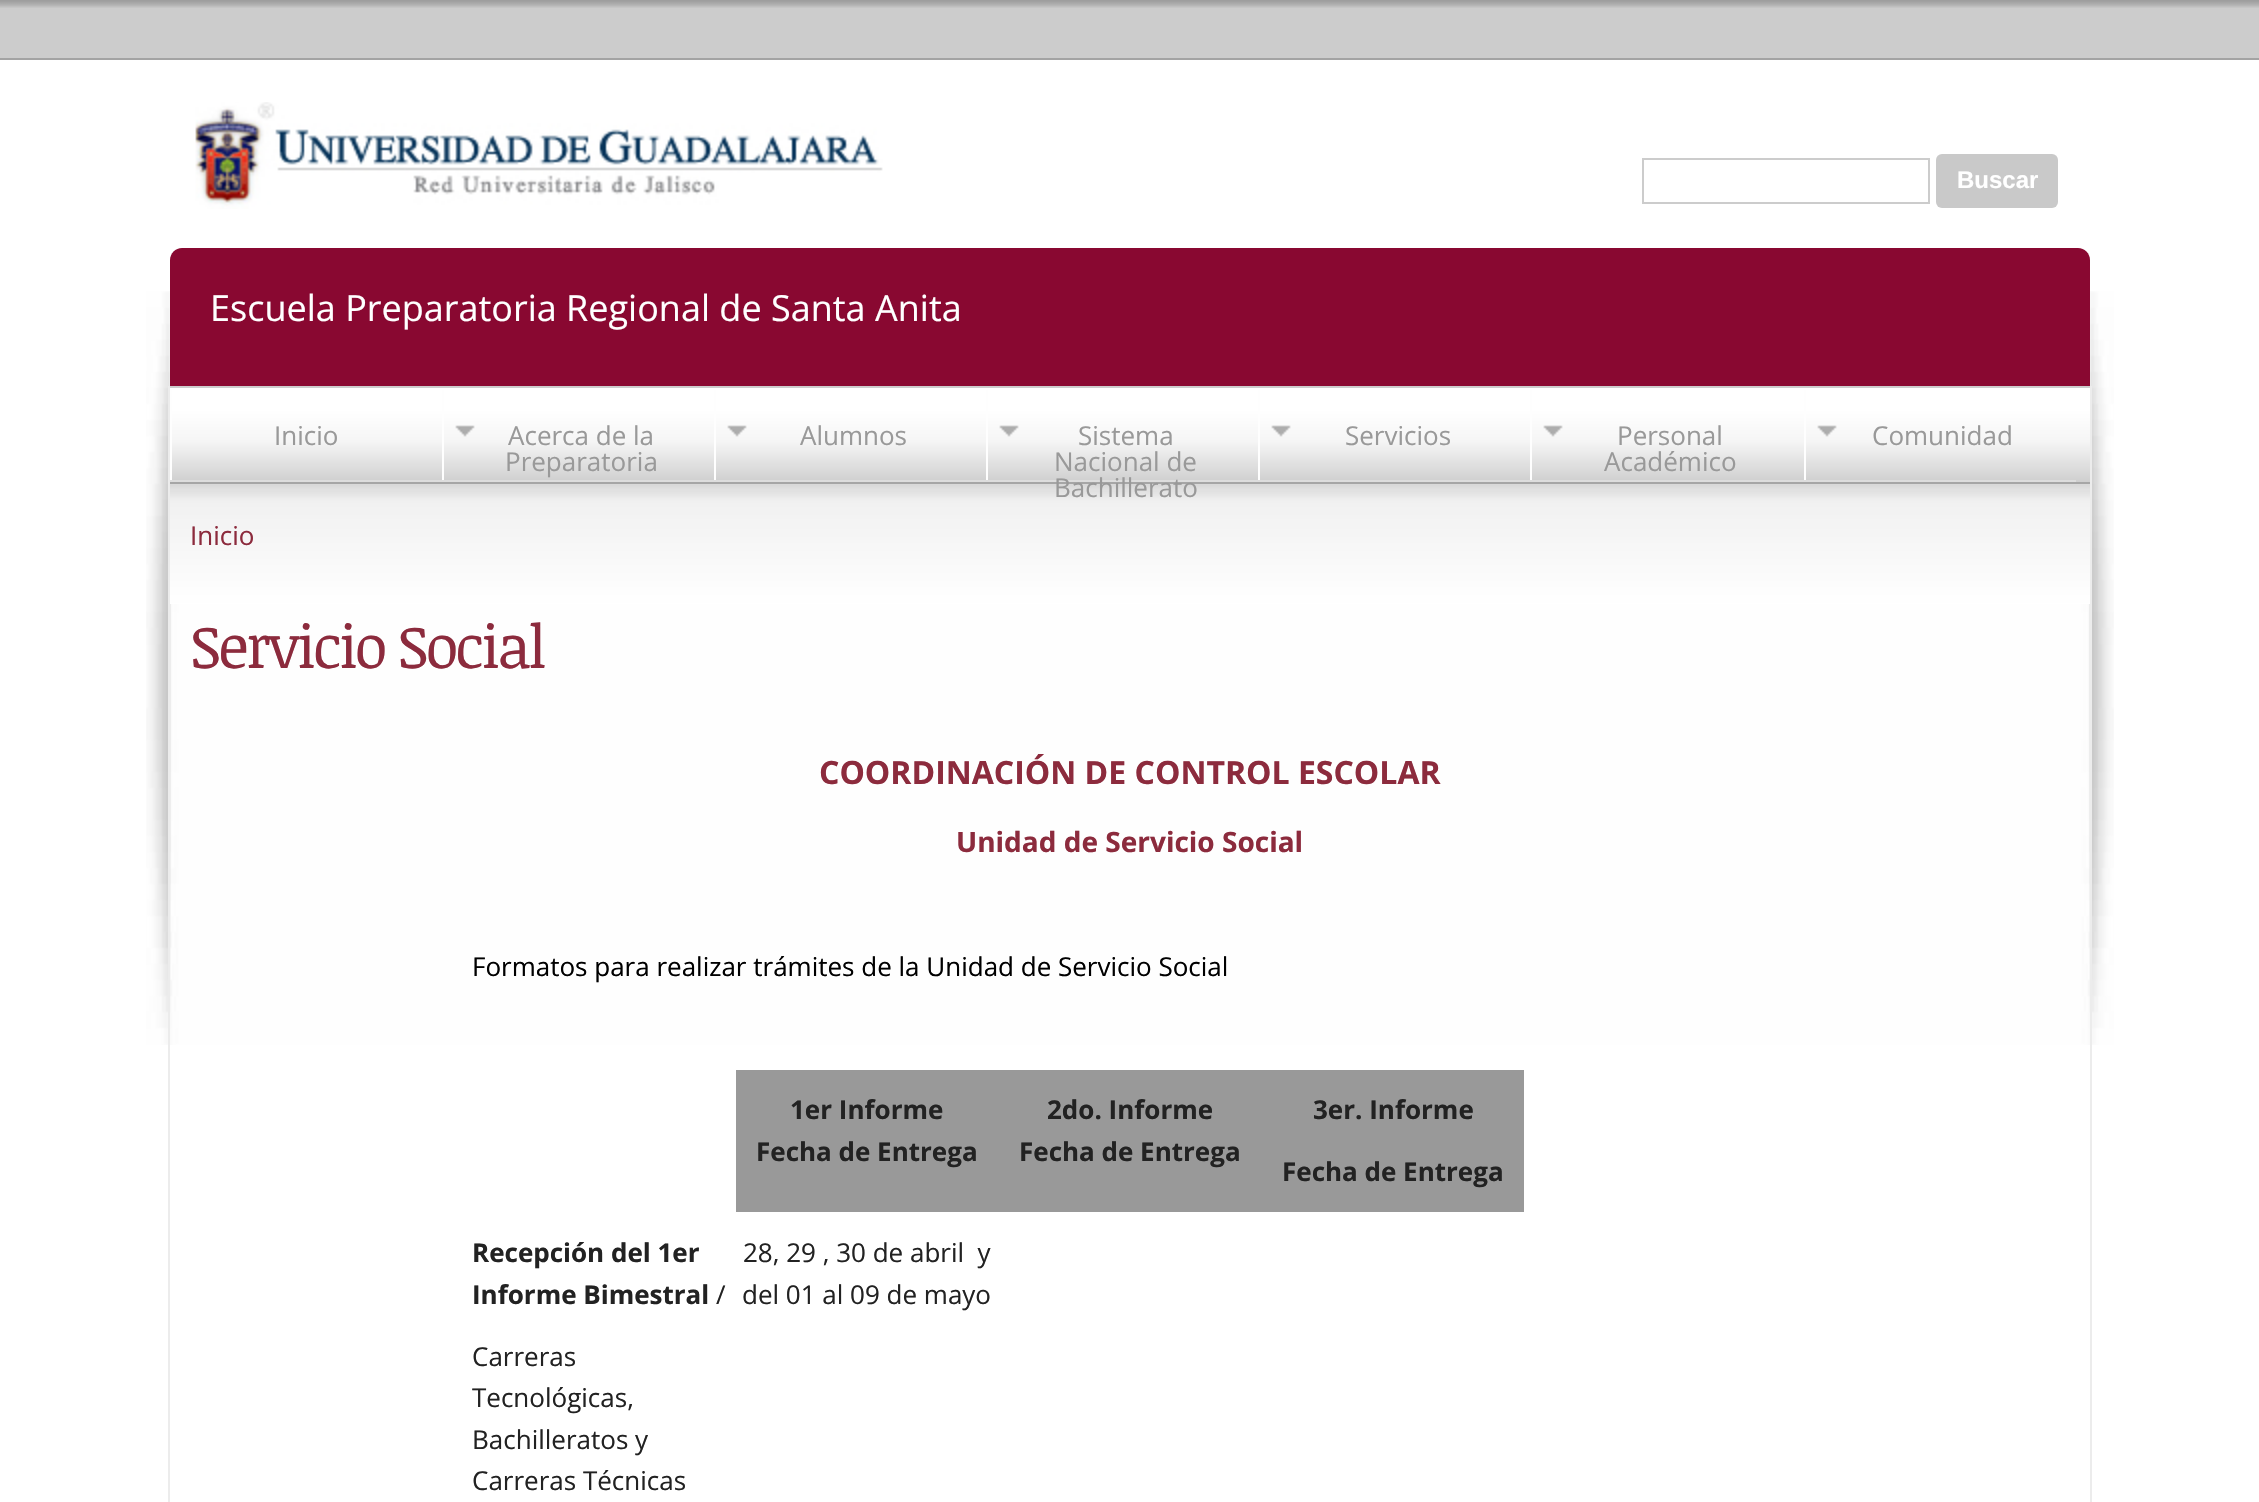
#include "include/core/SkBlurTypes.h"
#include "include/core/SkCanvas.h"
#include "include/core/SkData.h"
#include "include/core/SkFont.h"
#include "include/core/SkFontMgr.h"
#include "include/core/SkImage.h"
#include "include/core/SkMaskFilter.h"
#include "include/core/SkPaint.h"
#include "include/core/SkPathBuilder.h"
#include "include/core/SkTextBlob.h"
#include "include/effects/SkDashPathEffect.h"
#include "include/effects/SkGradientShader.h"
#include "include/utils/SkParsePath.h"

extern sk_sp<SkFontMgr> fontMgr;

void draw(SkCanvas* canvas) {
  SkPaint p;
  p.setAntiAlias(true);
  auto spacedText = [&](const char* s, float x, float y, const SkFont& font, const SkPaint& ink, float letter, float word) {
    std::vector<SkGlyphID> glyphs(font.countText(s, strlen(s), SkTextEncoding::kUTF8));
    std::vector<float> xs(glyphs.size());
    font.textToGlyphs(s, strlen(s), SkTextEncoding::kUTF8, glyphs);
    font.getXPos(glyphs, xs, x);
    float extra = 0;
    for (size_t i = 0; i < glyphs.size(); i++) {
      xs[i] += extra;
      extra += letter + word * (glyphs[i] == font.unicharToGlyph(' '));
    }
    canvas->drawTextBlob(SkTextBlob::MakeFromPosHGlyphs(glyphs, xs, y, font), 0, 0, ink);
  };
  canvas->clear(SK_ColorWHITE);
  canvas->drawImageRect(SkImages::DeferredFromEncodedData(SkData::MakeFromFileName("images/1.png")), SkRect::MakeLTRB(146, 291, 2114, 1045), SkSamplingOptions());
  p.setColor(SkColorSetRGB(204, 204, 204));
  canvas->drawRect(SkRect::MakeLTRB(0, 8, 2259, 58), p);
  canvas->drawImageRect(SkImages::DeferredFromEncodedData(SkData::MakeFromFileName("images/2.png")), SkRect::MakeLTRB(0, 0, 2259, 8), SkSamplingOptions());
  p.setColor(SkColorSetRGB(163, 163, 163));
  canvas->drawRect(SkRect::MakeLTRB(0, 58, 2259, 60), p);
  canvas->drawImageRect(SkImages::DeferredFromEncodedData(SkData::MakeFromFileName("images/3.png")), SkRect::MakeLTRB(195, 102, 883, 209), SkSamplingOptions());
  p.setStyle(SkPaint::kStroke_Style);
  p.setStrokeWidth(2);
  p.setColor(SkColorSetRGB(204, 204, 204));
  canvas->drawRect(SkRect::MakeLTRB(1643, 159, 1929, 203), p);
  p.setStyle(SkPaint::kFill_Style);
  p.setColor(SkColorSetRGB(201, 201, 201));
  canvas->drawRoundRect(SkRect::MakeLTRB(1936, 154, 2058, 208), 6, 6, p);
  p.setColor(SkColorSetRGB(137, 8, 49));
  canvas->drawPath(SkPathBuilder().moveTo(182, 248).lineTo(2078, 248).cubicTo(2084.5f, 248, 2090, 253.5f, 2090, 260).lineTo(2090, 386).lineTo(170, 386).lineTo(170, 260).cubicTo(170, 253.5f, 175.5f, 248, 182, 248).close().detach(), p);
  p.setColor(SkColorSetRGB(236, 236, 236));
  canvas->drawRect(SkRect::MakeLTRB(2090, 386, 2092, 1502), p);
  canvas->drawRect(SkRect::MakeLTRB(168, 386, 170, 1502), p);
  {
    const SkColor colors[] = {SK_ColorWHITE, SkColorSetRGB(245, 245, 245), SkColorSetRGB(207, 207, 207)};
    const float stops[] = {0.23f, 0.57f, 1};
    const SkPoint ends[] = {{1130, 388}, {1130, 482}};
    p.setShader(SkGradientShader::MakeLinear(ends, colors, stops, 3, SkTileMode::kClamp));
    p.setAlpha(255);
  }
  canvas->drawRect(SkRect::MakeLTRB(172, 388, 2090, 482), p);
  p.setShader(nullptr);
  p.setColor(SkColorSetRGB(204, 204, 204));
  canvas->drawRect(SkRect::MakeLTRB(170, 386, 2090, 388), p);
  p.setColor(SkColorSetRGB(166, 166, 166));
  canvas->drawRect(SkRect::MakeLTRB(170, 482, 2090, 484), p);
  canvas->save();
  canvas->clipRect(SkRect::MakeLTRB(170, 388, 442, 480));
  p.setColor(SkColorSetRGB(254, 254, 254));
  canvas->drawPath(SkPathBuilder(SkPathFillType::kEvenOdd).moveTo(-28, 190).lineTo(640, 190).lineTo(640, 678).lineTo(-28, 678).close().moveTo(172, 390).lineTo(444, 390).lineTo(444, 482).lineTo(172, 482).close().detach(), p);
  canvas->restore();
  p.setColor(SkColorSetRGB(221, 221, 221));
  canvas->drawRect(SkRect::MakeLTRB(170, 480, 2076, 482), p);
  canvas->drawImageRect(SkImages::DeferredFromEncodedData(SkData::MakeFromFileName("images/4.png")), SkRect::MakeLTRB(455, 425, 475, 437), SkSamplingOptions());
  canvas->save();
  canvas->clipRect(SkRect::MakeLTRB(442, 388, 714, 480));
  p.setColor(SkColorSetRGB(254, 254, 254));
  canvas->drawPath(SkPathBuilder(SkPathFillType::kEvenOdd).moveTo(244, 190).lineTo(912, 190).lineTo(912, 678).lineTo(244, 678).close().moveTo(444, 390).lineTo(716, 390).lineTo(716, 482).lineTo(444, 482).close().detach(), p);
  canvas->restore();
  canvas->drawImageRect(SkImages::DeferredFromEncodedData(SkData::MakeFromFileName("images/4.png")), SkRect::MakeLTRB(727, 425, 747, 437), SkSamplingOptions());
  canvas->save();
  canvas->clipRect(SkRect::MakeLTRB(714, 388, 986, 480));
  canvas->drawPath(SkPathBuilder(SkPathFillType::kEvenOdd).moveTo(516, 190).lineTo(1184, 190).lineTo(1184, 678).lineTo(516, 678).close().moveTo(716, 390).lineTo(988, 390).lineTo(988, 482).lineTo(716, 482).close().detach(), p);
  canvas->restore();
  canvas->drawImageRect(SkImages::DeferredFromEncodedData(SkData::MakeFromFileName("images/4.png")), SkRect::MakeLTRB(999, 425, 1019, 437), SkSamplingOptions());
  canvas->save();
  canvas->clipRect(SkRect::MakeLTRB(986, 388, 1258, 480));
  canvas->drawPath(SkPathBuilder(SkPathFillType::kEvenOdd).moveTo(788, 190).lineTo(1456, 190).lineTo(1456, 678).lineTo(788, 678).close().moveTo(988, 390).lineTo(1260, 390).lineTo(1260, 482).lineTo(988, 482).close().detach(), p);
  canvas->restore();
  canvas->drawImageRect(SkImages::DeferredFromEncodedData(SkData::MakeFromFileName("images/4.png")), SkRect::MakeLTRB(1271, 425, 1291, 437), SkSamplingOptions());
  canvas->save();
  canvas->clipRect(SkRect::MakeLTRB(1258, 388, 1530, 480));
  canvas->drawPath(SkPathBuilder(SkPathFillType::kEvenOdd).moveTo(1060, 190).lineTo(1728, 190).lineTo(1728, 678).lineTo(1060, 678).close().moveTo(1260, 390).lineTo(1532, 390).lineTo(1532, 482).lineTo(1260, 482).close().detach(), p);
  canvas->restore();
  canvas->drawImageRect(SkImages::DeferredFromEncodedData(SkData::MakeFromFileName("images/4.png")), SkRect::MakeLTRB(1543, 425, 1563, 437), SkSamplingOptions());
  canvas->save();
  canvas->clipRect(SkRect::MakeLTRB(1530, 388, 1804, 480));
  canvas->drawPath(SkPathBuilder(SkPathFillType::kEvenOdd).moveTo(1332, 190).lineTo(2002, 190).lineTo(2002, 678).lineTo(1332, 678).close().moveTo(1532, 390).lineTo(1806, 390).lineTo(1806, 482).lineTo(1532, 482).close().detach(), p);
  canvas->restore();
  canvas->drawImageRect(SkImages::DeferredFromEncodedData(SkData::MakeFromFileName("images/4.png")), SkRect::MakeLTRB(1817, 425, 1837, 437), SkSamplingOptions());
  canvas->save();
  canvas->clipRect(SkRect::MakeLTRB(1804, 388, 2076, 480));
  canvas->drawPath(SkPathBuilder(SkPathFillType::kEvenOdd).moveTo(1606, 190).lineTo(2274, 190).lineTo(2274, 678).lineTo(1606, 678).close().moveTo(1806, 390).lineTo(2078, 390).lineTo(2078, 482).lineTo(1806, 482).close().detach(), p);
  canvas->restore();
  canvas->drawImageRect(SkImages::DeferredFromEncodedData(SkData::MakeFromFileName("images/5.png")), SkRect::MakeLTRB(170, 484, 2090, 604), SkSamplingOptions());
  p.setColor(SkColorSetRGB(153, 153, 153));
  canvas->drawRect(SkRect::MakeLTRB(736, 1070, 1524, 1212), p);
  SkFont font1(fontMgr->matchFamilyStyle("Liberation Sans", SkFontStyle::Bold()), 24);
  font1.setSubpixel(true);
  p.setColor(SK_ColorWHITE);
  canvas->drawString("Buscar", 1957, 188, font1, p);
  SkFont font2(fontMgr->matchFamilyStyle("Open Sans", SkFontStyle::Normal()), 36);
  font2.setSubpixel(true);
  canvas->drawString("Escuela Preparatoria Regional de Santa Anita", 210, 321, font2, p);
  SkFont font3(fontMgr->matchFamilyStyle("Open Sans", SkFontStyle::Normal()), 26);
  font3.setSubpixel(true);
  p.setColor(SkColorSetRGB(153, 153, 153));
  canvas->drawString("Inicio", 274, 445, font3, p);
  canvas->drawString("Acerca de la", 508, 445, font3, p);
  canvas->drawString("Preparatoria", 505, 471, font3, p);
  canvas->drawString("Alumnos", 800, 445, font3, p);
  canvas->drawString("Sistema", 1078, 445, font3, p);
  canvas->drawString("Nacional de", 1054, 471, font3, p);
  canvas->drawString("Bachillerato", 1054, 497, font3, p);
  canvas->drawString("Servicios", 1345, 445, font3, p);
  canvas->drawString("Personal", 1617, 445, font3, p);
  canvas->drawString("Académico", 1604, 471, font3, p);
  canvas->drawString("Comunidad", 1872, 445, font3, p);
  p.setColor(SkColorSetRGB(140, 43, 61));
  canvas->drawString("Inicio", 190, 545, font3, p);
  SkFont font4(fontMgr->matchFamilyStyle("Noticia Text", SkFontStyle::Normal()), 60);
  font4.setSubpixel(true);
  spacedText("Servicio Social", 190, 668, font4, p, -3, 0);
  SkFont font5(fontMgr->matchFamilyStyle("Open Sans", SkFontStyle::Bold()), 32);
  font5.setSubpixel(true);
  canvas->drawString("COORDINACIÓN DE CONTROL ESCOLAR", 819, 784, font5, p);
  SkFont font6(fontMgr->matchFamilyStyle("Open Sans", SkFontStyle::Bold()), 28);
  font6.setSubpixel(true);
  canvas->drawString("Unidad de Servicio Social", 956, 852, font6, p);
  p.setColor(SK_ColorBLACK);
  canvas->drawString("Formatos para realizar trámites de la Unidad de Servicio Social", 472, 976, font3, p);
  SkFont font7(fontMgr->matchFamilyStyle("Open Sans", SkFontStyle::Bold()), 26);
  font7.setSubpixel(true);
  p.setColor(SkColorSetRGB(34, 34, 34));
  canvas->drawString("1er Informe", 790, 1119, font7, p);
  canvas->drawString("Fecha de Entrega", 756, 1161, font7, p);
  canvas->drawString("2do. Informe", 1047, 1119, font7, p);
  canvas->drawString("Fecha de Entrega", 1019, 1161, font7, p);
  canvas->drawString("3er. Informe", 1313, 1119, font7, p);
  canvas->drawString("Fecha de Entrega", 1282, 1181, font7, p);
  canvas->drawString("Recepción del 1er", 472, 1262, font7, p);
  canvas->drawString("Informe Bimestral", 472, 1304, font7, p);
  canvas->drawString("/", 716, 1304, font3, p);
  canvas->drawString("Carreras", 472, 1366, font3, p);
  canvas->drawString("Tecnológicas,", 472, 1407, font3, p);
  canvas->drawString("Bachilleratos y", 472, 1449, font3, p);
  canvas->drawString("Carreras Técnicas", 472, 1490, font3, p);
  canvas->drawString("28, 29 , 30 de abril  y", 743, 1262, font3, p);
  canvas->drawString("del 01 al 09 de mayo", 742, 1304, font3, p);
}
